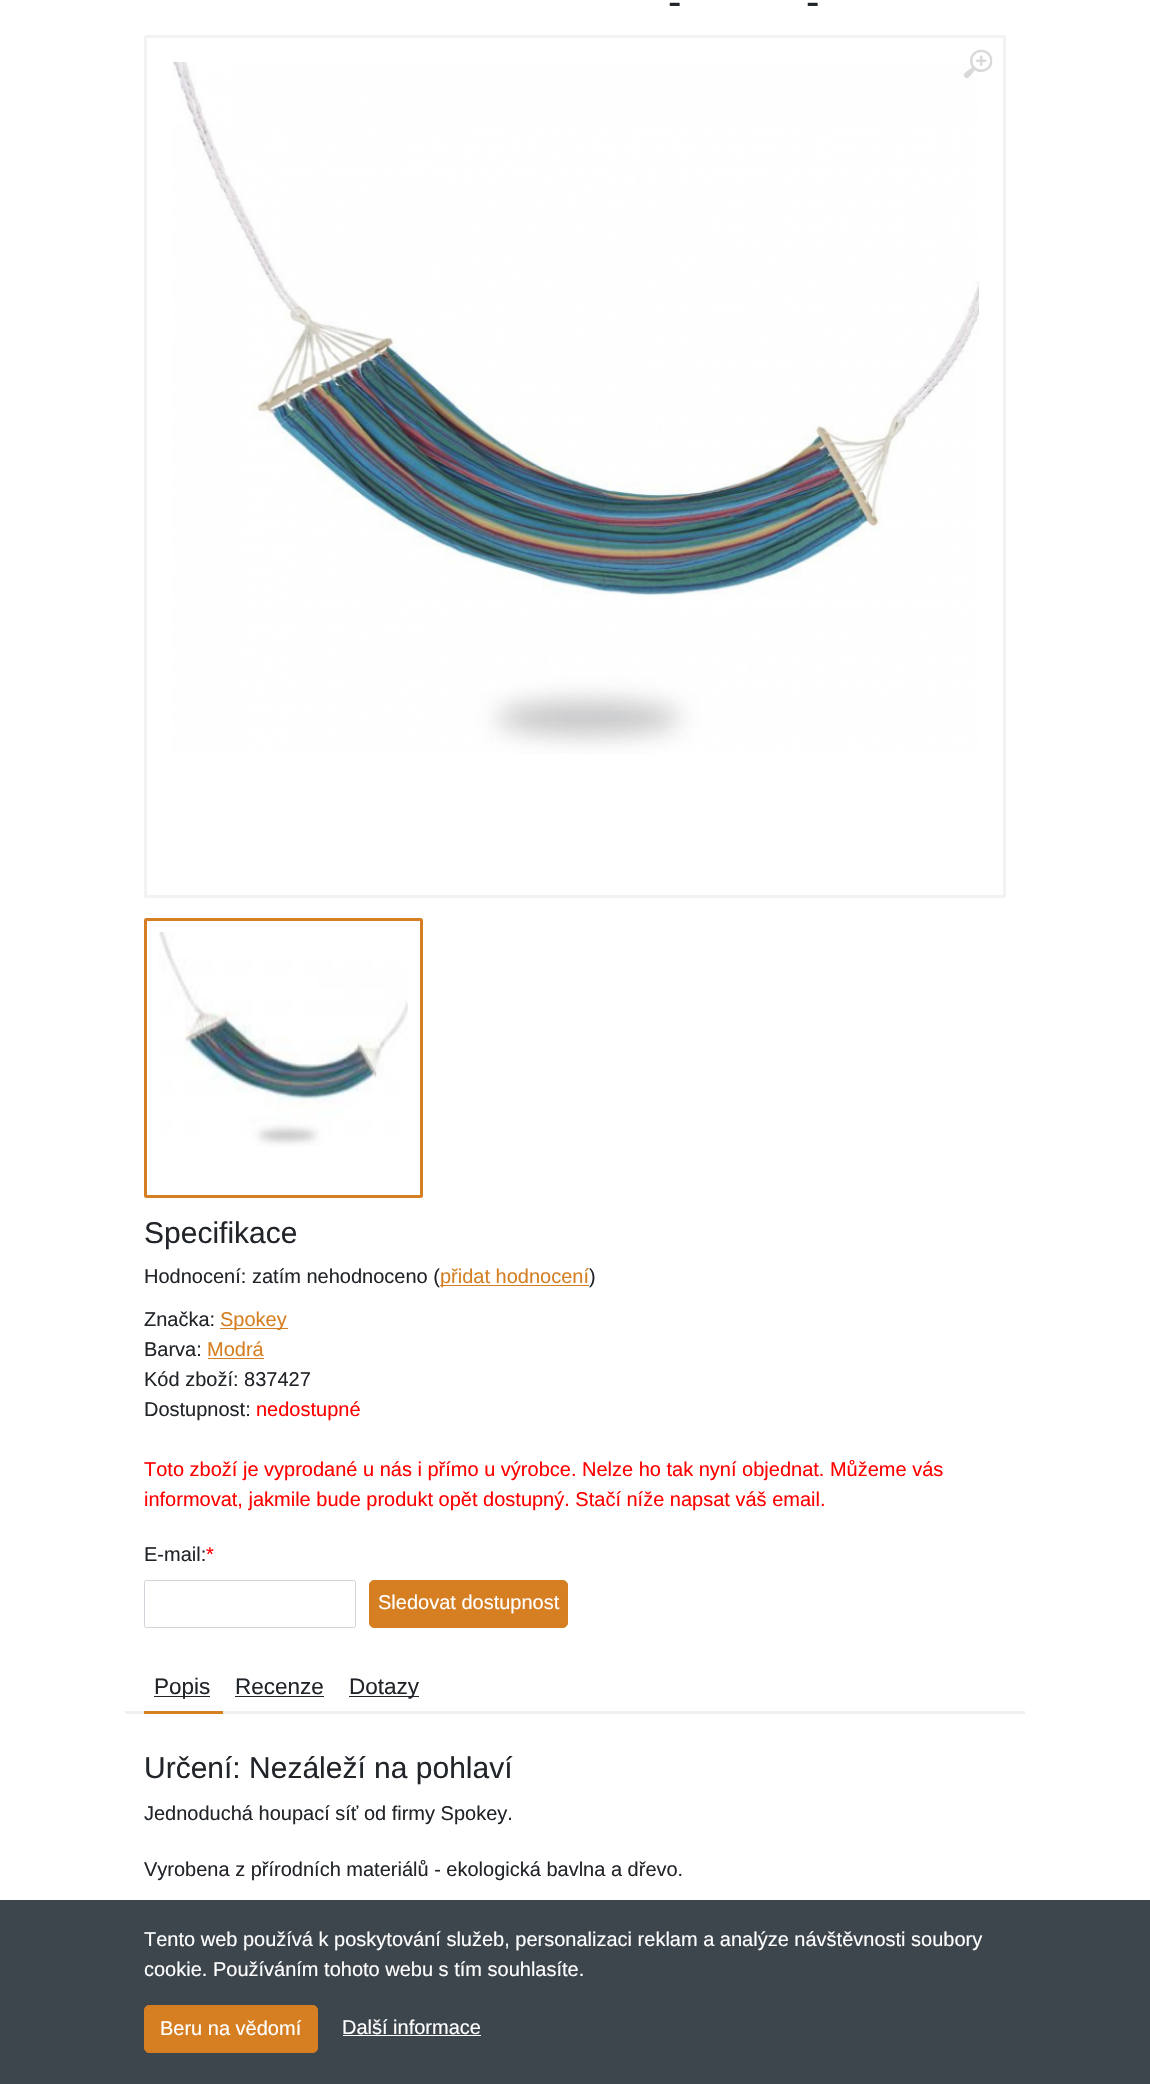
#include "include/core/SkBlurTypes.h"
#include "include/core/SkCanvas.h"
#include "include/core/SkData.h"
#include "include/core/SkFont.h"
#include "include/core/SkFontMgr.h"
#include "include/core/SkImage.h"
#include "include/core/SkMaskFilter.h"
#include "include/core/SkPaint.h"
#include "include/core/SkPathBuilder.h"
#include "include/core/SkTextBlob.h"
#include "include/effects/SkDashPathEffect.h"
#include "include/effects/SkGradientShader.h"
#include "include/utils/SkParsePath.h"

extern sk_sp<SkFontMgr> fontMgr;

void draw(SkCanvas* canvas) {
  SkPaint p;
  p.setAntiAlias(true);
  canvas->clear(SK_ColorWHITE);
  p.setStyle(SkPaint::kStroke_Style);
  p.setStrokeWidth(3);
  p.setColor(SkColorSetRGB(242, 242, 242));
  canvas->drawRoundRect(SkRect::MakeLTRB(145.5f, 36.5f, 1004.5f, 896.5f), 1, 1, p);
  canvas->drawImageRect(SkImages::DeferredFromEncodedData(SkData::MakeFromFileName("images/2.png")), SkRect::MakeLTRB(172, 62, 979, 754), SkSamplingOptions());
  canvas->drawImageRect(SkImages::DeferredFromEncodedData(SkData::MakeFromFileName("images/1.png")), SkRect::MakeLTRB(963, 49, 993, 79), SkSamplingOptions());
  p.setColor(SkColorSetRGB(214, 127, 34));
  canvas->drawRoundRect(SkRect::MakeLTRB(145.5f, 919.5f, 421.5f, 1196.5f), 1, 1, p);
  canvas->drawImageRect(SkImages::DeferredFromEncodedData(SkData::MakeFromFileName("images/3.png")), SkRect::MakeLTRB(159, 932, 408, 1147), SkSamplingOptions());
  p.setStyle(SkPaint::kFill_Style);
  canvas->drawRect(SkRect::MakeLTRB(220, 1328, 288, 1329), p);
  canvas->drawRect(SkRect::MakeLTRB(208, 1358, 264, 1359), p);
  p.setStyle(SkPaint::kStroke_Style);
  p.setStrokeWidth(1);
  p.setColor(SkColorSetRGB(206, 212, 218));
  canvas->drawRoundRect(SkRect::MakeLTRB(144.5f, 1580.5f, 355.5f, 1627.5f), 2, 2, p);
  p.setStyle(SkPaint::kFill_Style);
  p.setColor(SkColorSetRGB(214, 127, 34));
  canvas->drawRoundRect(SkRect::MakeLTRB(369.5f, 1580.5f, 567.5f, 1627.5f), 4.5f, 4.5f, p);
  p.setStyle(SkPaint::kStroke_Style);
  canvas->drawRoundRect(SkRect::MakeLTRB(369.5f, 1580.5f, 567.5f, 1627.5f), 4.5f, 4.5f, p);
  p.setStyle(SkPaint::kFill_Style);
  p.setColor(SkColorSetRGB(240, 240, 240));
  canvas->drawRect(SkRect::MakeLTRB(125, 1711, 1025, 1714), p);
  p.setColor(SkColorSetRGB(214, 127, 34));
  canvas->drawRect(SkRect::MakeLTRB(144, 1711, 223, 1714), p);
  p.setColor(SkColorSetRGB(33, 37, 41));
  canvas->drawRect(SkRect::MakeLTRB(154, 1696, 210, 1697), p);
  canvas->drawRect(SkRect::MakeLTRB(235, 1696, 324, 1697), p);
  canvas->drawRect(SkRect::MakeLTRB(349, 1696, 419, 1697), p);
  p.setColor(SkColorSetRGB(61, 70, 77));
  canvas->drawRect(SkRect::MakeLTRB(0, 1900, 1150, 2084), p);
  p.setColor(SkColorSetRGB(214, 127, 34));
  canvas->drawRoundRect(SkRect::MakeLTRB(144.5f, 2005.5f, 317.5f, 2052.5f), 4.5f, 4.5f, p);
  p.setStyle(SkPaint::kStroke_Style);
  canvas->drawRoundRect(SkRect::MakeLTRB(144.5f, 2005.5f, 317.5f, 2052.5f), 4.5f, 4.5f, p);
  p.setStyle(SkPaint::kFill_Style);
  p.setColor(SK_ColorWHITE);
  canvas->drawRect(SkRect::MakeLTRB(343, 2035, 481, 2036), p);
  SkFont font1(fontMgr->matchFamilyStyle("Liberation Sans", SkFontStyle::Normal()), 40);
  font1.setSubpixel(true);
  p.setColor(SkColorSetRGB(33, 37, 41));
  canvas->drawString("-", 668, 15, font1, p);
  canvas->drawString("-", 806, 15, font1, p);
  SkFont font2(fontMgr->matchFamilyStyle("Liberation Sans", SkFontStyle::Normal()), 30);
  font2.setSubpixel(true);
  canvas->drawString("Specifikace", 144, 1243, font2, p);
  SkFont font3(fontMgr->matchFamilyStyle("Liberation Sans", SkFontStyle::Normal()), 20);
  font3.setSubpixel(true);
  canvas->drawString("Hodnocení:", 144, 1283, font3, p);
  canvas->drawString("zatím nehodnoceno (", 252, 1283, font3, p);
  p.setColor(SkColorSetRGB(214, 127, 34));
  canvas->drawRect(SkRect::MakeLTRB(440, 1285, 589, 1286), p);
  canvas->drawString("přidat hodnocení", 440, 1283, font3, p);
  p.setColor(SkColorSetRGB(33, 37, 41));
  canvas->drawString(")", 589, 1283, font3, p);
  canvas->drawString("Značka:", 144, 1326, font3, p);
  p.setColor(SkColorSetRGB(214, 127, 34));
  canvas->drawString("Spokey", 220, 1326, font3, p);
  p.setColor(SkColorSetRGB(33, 37, 41));
  canvas->drawString("Barva:", 144, 1356, font3, p);
  p.setColor(SkColorSetRGB(214, 127, 34));
  canvas->drawString("Modrá", 207, 1356, font3, p);
  p.setColor(SkColorSetRGB(33, 37, 41));
  canvas->drawString("Kód zboží: 837427", 144, 1386, font3, p);
  canvas->drawString("Dostupnost:", 144, 1416, font3, p);
  p.setColor(SkColorSetRGB(255, 0, 0));
  canvas->drawString("nedostupné", 256, 1416, font3, p);
  canvas->drawString("Toto zboží je vyprodané u nás i přímo u výrobce. Nelze ho tak nyní objednat. Můžeme vás", 144, 1476, font3, p);
  canvas->drawString("informovat, jakmile bude produkt opět dostupný. Stačí níže napsat váš email.", 144, 1506, font3, p);
  p.setColor(SkColorSetRGB(33, 37, 41));
  canvas->drawString("E-mail:", 144, 1561, font3, p);
  p.setColor(SkColorSetRGB(255, 0, 0));
  canvas->drawString("*", 206, 1561, font3, p);
  p.setColor(SK_ColorWHITE);
  canvas->drawString("Sledovat dostupnost", 378, 1609, font3, p);
  SkFont font4(fontMgr->matchFamilyStyle("Liberation Sans", SkFontStyle::Normal()), 22.5f);
  font4.setSubpixel(true);
  p.setColor(SkColorSetRGB(33, 37, 41));
  canvas->drawString("Popis", 154, 1694, font4, p);
  canvas->drawString("Recenze", 235, 1694, font4, p);
  canvas->drawString("Dotazy", 349, 1694, font4, p);
  canvas->drawString("Určení: Nezáleží na pohlaví", 144, 1778, font2, p);
  canvas->drawString("Jednoduchá houpací síť od firmy Spokey.", 144, 1820, font3, p);
  canvas->drawString("Vyrobena z přírodních materiálů - ekologická bavlna a dřevo.", 144, 1876, font3, p);
  p.setColor(SK_ColorWHITE);
  canvas->drawString("Tento web používá k poskytování služeb, personalizaci reklam a analýze návštěvnosti soubory", 144, 1946, font3, p);
  canvas->drawString("cookie. Používáním tohoto webu s tím souhlasíte.", 144, 1976, font3, p);
  canvas->drawString("Beru na vědomí", 160, 2035, font3, p);
  canvas->drawString("Další informace", 342, 2034, font3, p);
}
